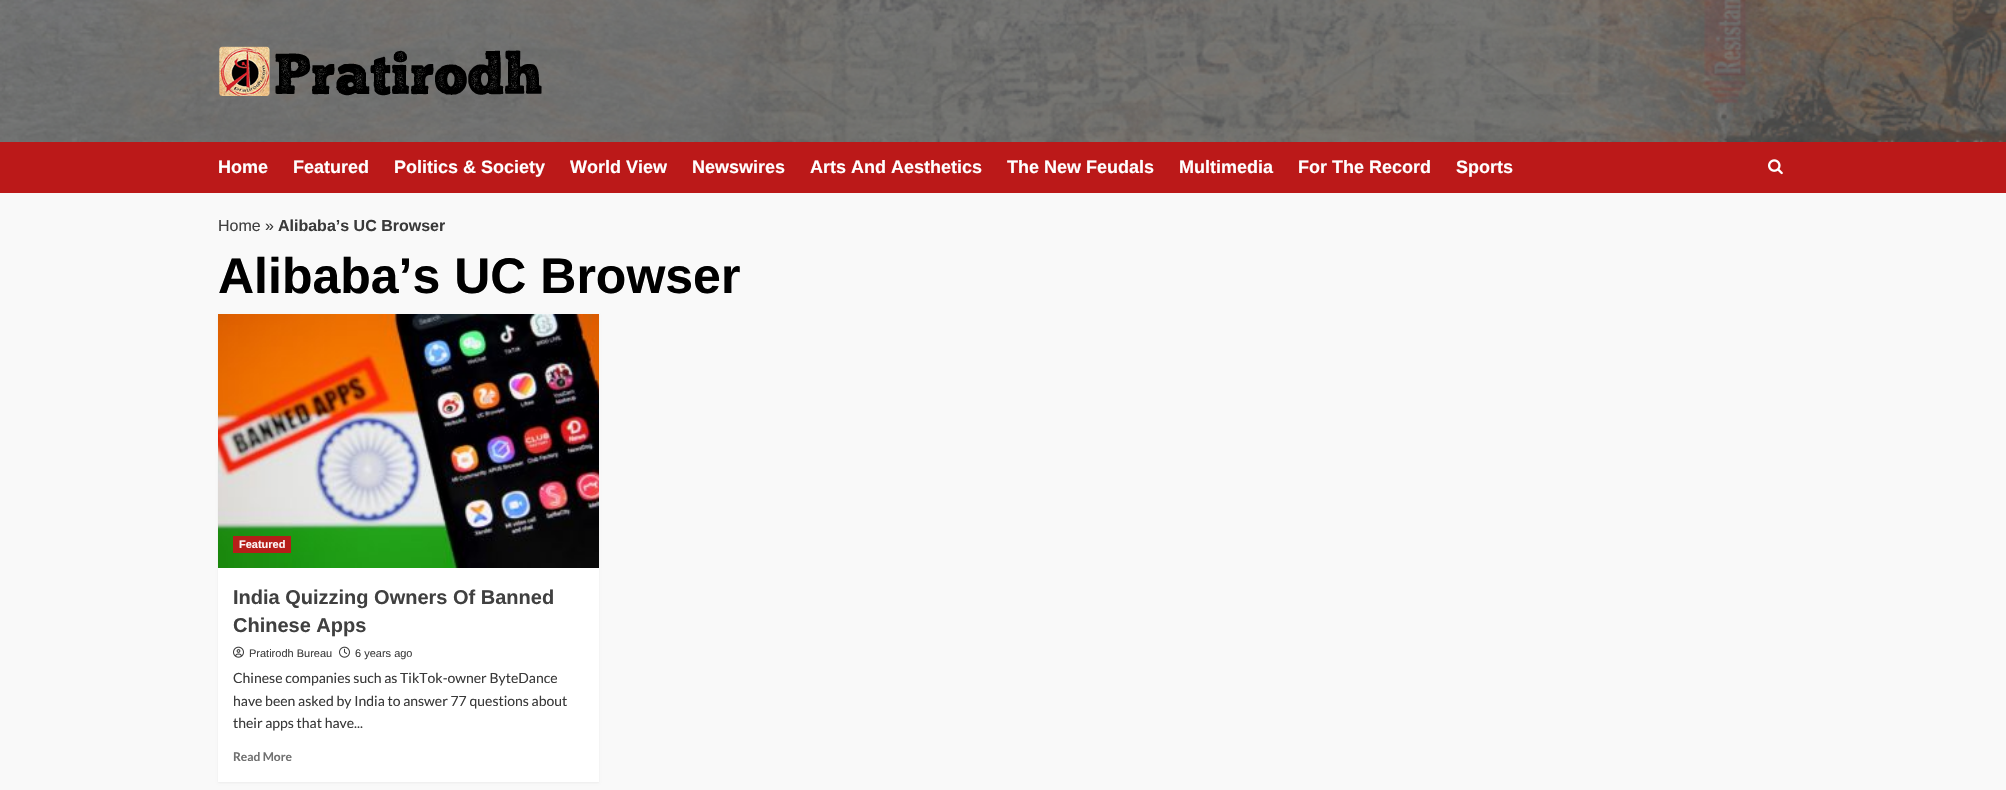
#include "include/core/SkBlurTypes.h"
#include "include/core/SkCanvas.h"
#include "include/core/SkData.h"
#include "include/core/SkFont.h"
#include "include/core/SkFontMgr.h"
#include "include/core/SkImage.h"
#include "include/core/SkMaskFilter.h"
#include "include/core/SkPaint.h"
#include "include/core/SkPathBuilder.h"
#include "include/core/SkTextBlob.h"
#include "include/effects/SkDashPathEffect.h"
#include "include/effects/SkGradientShader.h"
#include "include/utils/SkParsePath.h"

extern sk_sp<SkFontMgr> fontMgr;

void draw(SkCanvas* canvas) {
  SkPaint p;
  p.setAntiAlias(true);
  canvas->clear(SkColorSetRGB(249, 249, 249));
  canvas->drawImageRect(SkImages::DeferredFromEncodedData(SkData::MakeFromFileName("images/1.png")), SkRect::MakeLTRB(0, 0, 2006, 142), SkSamplingOptions());
  canvas->drawImageRect(SkImages::DeferredFromEncodedData(SkData::MakeFromFileName("images/2.png")), SkRect::MakeLTRB(219, 46, 542, 96), SkSamplingOptions());
  p.setColor(SkColorSetRGB(187, 25, 25));
  canvas->drawRect(SkRect::MakeLTRB(0, 142, 2006, 193), p);
  canvas->drawImageRect(SkImages::DeferredFromEncodedData(SkData::MakeFromFileName("images/3.png")), SkRect::MakeLTRB(1768, 159, 1783, 175), SkSamplingOptions());
  p.setColor(SkColorSetARGB(13, 0, 0, 0));
  p.setMaskFilter(SkMaskFilter::MakeBlur(kNormal_SkBlurStyle, 1));
  canvas->drawRect(SkRect::MakeLTRB(218, 315, 599, 783), p);
  p.setMaskFilter(nullptr);
  p.setColor(SK_ColorWHITE);
  canvas->drawRect(SkRect::MakeLTRB(218, 568, 599, 782), p);
  canvas->drawImageRect(SkImages::DeferredFromEncodedData(SkData::MakeFromFileName("images/4.png")), SkRect::MakeLTRB(218, 314, 599, 568), SkSamplingOptions());
  p.setColor(SkColorSetARGB(245, 187, 25, 25));
  canvas->drawRect(SkRect::MakeLTRB(233, 536, 291, 553), p);
  canvas->drawImageRect(SkImages::DeferredFromEncodedData(SkData::MakeFromFileName("images/5.png")), SkRect::MakeLTRB(233, 646, 244, 658), SkSamplingOptions());
  canvas->drawImageRect(SkImages::DeferredFromEncodedData(SkData::MakeFromFileName("images/6.png")), SkRect::MakeLTRB(339, 646, 350, 658), SkSamplingOptions());
  SkFont font1(fontMgr->matchFamilyStyle("Liberation Sans", SkFontStyle::Bold()), 18);
  font1.setSubpixel(true);
  p.setColor(SK_ColorWHITE);
  canvas->drawString("Home", 218, 173, font1, p);
  canvas->drawString("Featured", 293, 173, font1, p);
  canvas->drawString("Politics & Society", 394, 173, font1, p);
  canvas->drawString("World View", 570, 173, font1, p);
  canvas->drawString("Newswires", 692, 173, font1, p);
  canvas->drawString("Arts And Aesthetics", 810, 173, font1, p);
  canvas->drawString("The New Feudals", 1007, 173, font1, p);
  canvas->drawString("Multimedia", 1179, 173, font1, p);
  canvas->drawString("For The Record", 1298, 173, font1, p);
  canvas->drawString("Sports", 1456, 173, font1, p);
  SkFont font2(fontMgr->matchFamilyStyle("Liberation Sans", SkFontStyle::Normal()), 16);
  font2.setSubpixel(true);
  p.setColor(SkColorSetRGB(64, 64, 64));
  canvas->drawString("Home", 218, 231, font2, p);
  p.setColor(SkColorSetRGB(58, 58, 58));
  canvas->drawString("»", 265, 231, font2, p);
  SkFont font3(fontMgr->matchFamilyStyle("Liberation Sans", SkFontStyle::Bold()), 16);
  font3.setSubpixel(true);
  canvas->drawString("Alibaba’s UC Browser", 278, 231, font3, p);
  SkFont font4(fontMgr->matchFamilyStyle("Liberation Sans", SkFontStyle::Bold()), 50);
  font4.setSubpixel(true);
  p.setColor(SK_ColorBLACK);
  canvas->drawString("Alibaba’s UC Browser", 218, 293, font4, p);
  SkFont font5(fontMgr->matchFamilyStyle("Liberation Sans", SkFontStyle::Bold()), 11);
  font5.setSubpixel(true);
  p.setColor(SkColorSetRGB(252, 246, 246));
  canvas->drawString("Featured", 239, 548, font5, p);
  SkFont font6(fontMgr->matchFamilyStyle("Liberation Sans", SkFontStyle::Bold()), 20);
  font6.setSubpixel(true);
  p.setColor(SkColorSetRGB(64, 64, 64));
  canvas->drawString("India Quizzing Owners Of Banned", 233, 604, font6, p);
  canvas->drawString("Chinese Apps", 233, 632, font6, p);
  SkFont font7(fontMgr->matchFamilyStyle("Liberation Sans", SkFontStyle::Normal()), 11);
  font7.setSubpixel(true);
  canvas->drawString("Pratirodh Bureau", 249, 657, font7, p);
  canvas->drawString("6 years ago", 355, 657, font7, p);
  SkFont font8(fontMgr->matchFamilyStyle("Lato", SkFontStyle::Normal()), 14);
  font8.setSubpixel(true);
  p.setColor(SkColorSetRGB(58, 58, 58));
  canvas->drawString("Chinese companies such as TikTok-owner ByteDance", 233, 683, font8, p);
  canvas->drawString("have been asked by India to answer 77 questions about", 233, 706, font8, p);
  canvas->drawString("their apps that have...", 233, 728, font8, p);
  SkFont font9(fontMgr->matchFamilyStyle("Lato", SkFontStyle::Bold()), 12);
  font9.setSubpixel(true);
  p.setColor(SkColorSetRGB(112, 112, 112));
  canvas->drawString("Read More", 233, 761, font9, p);
}
